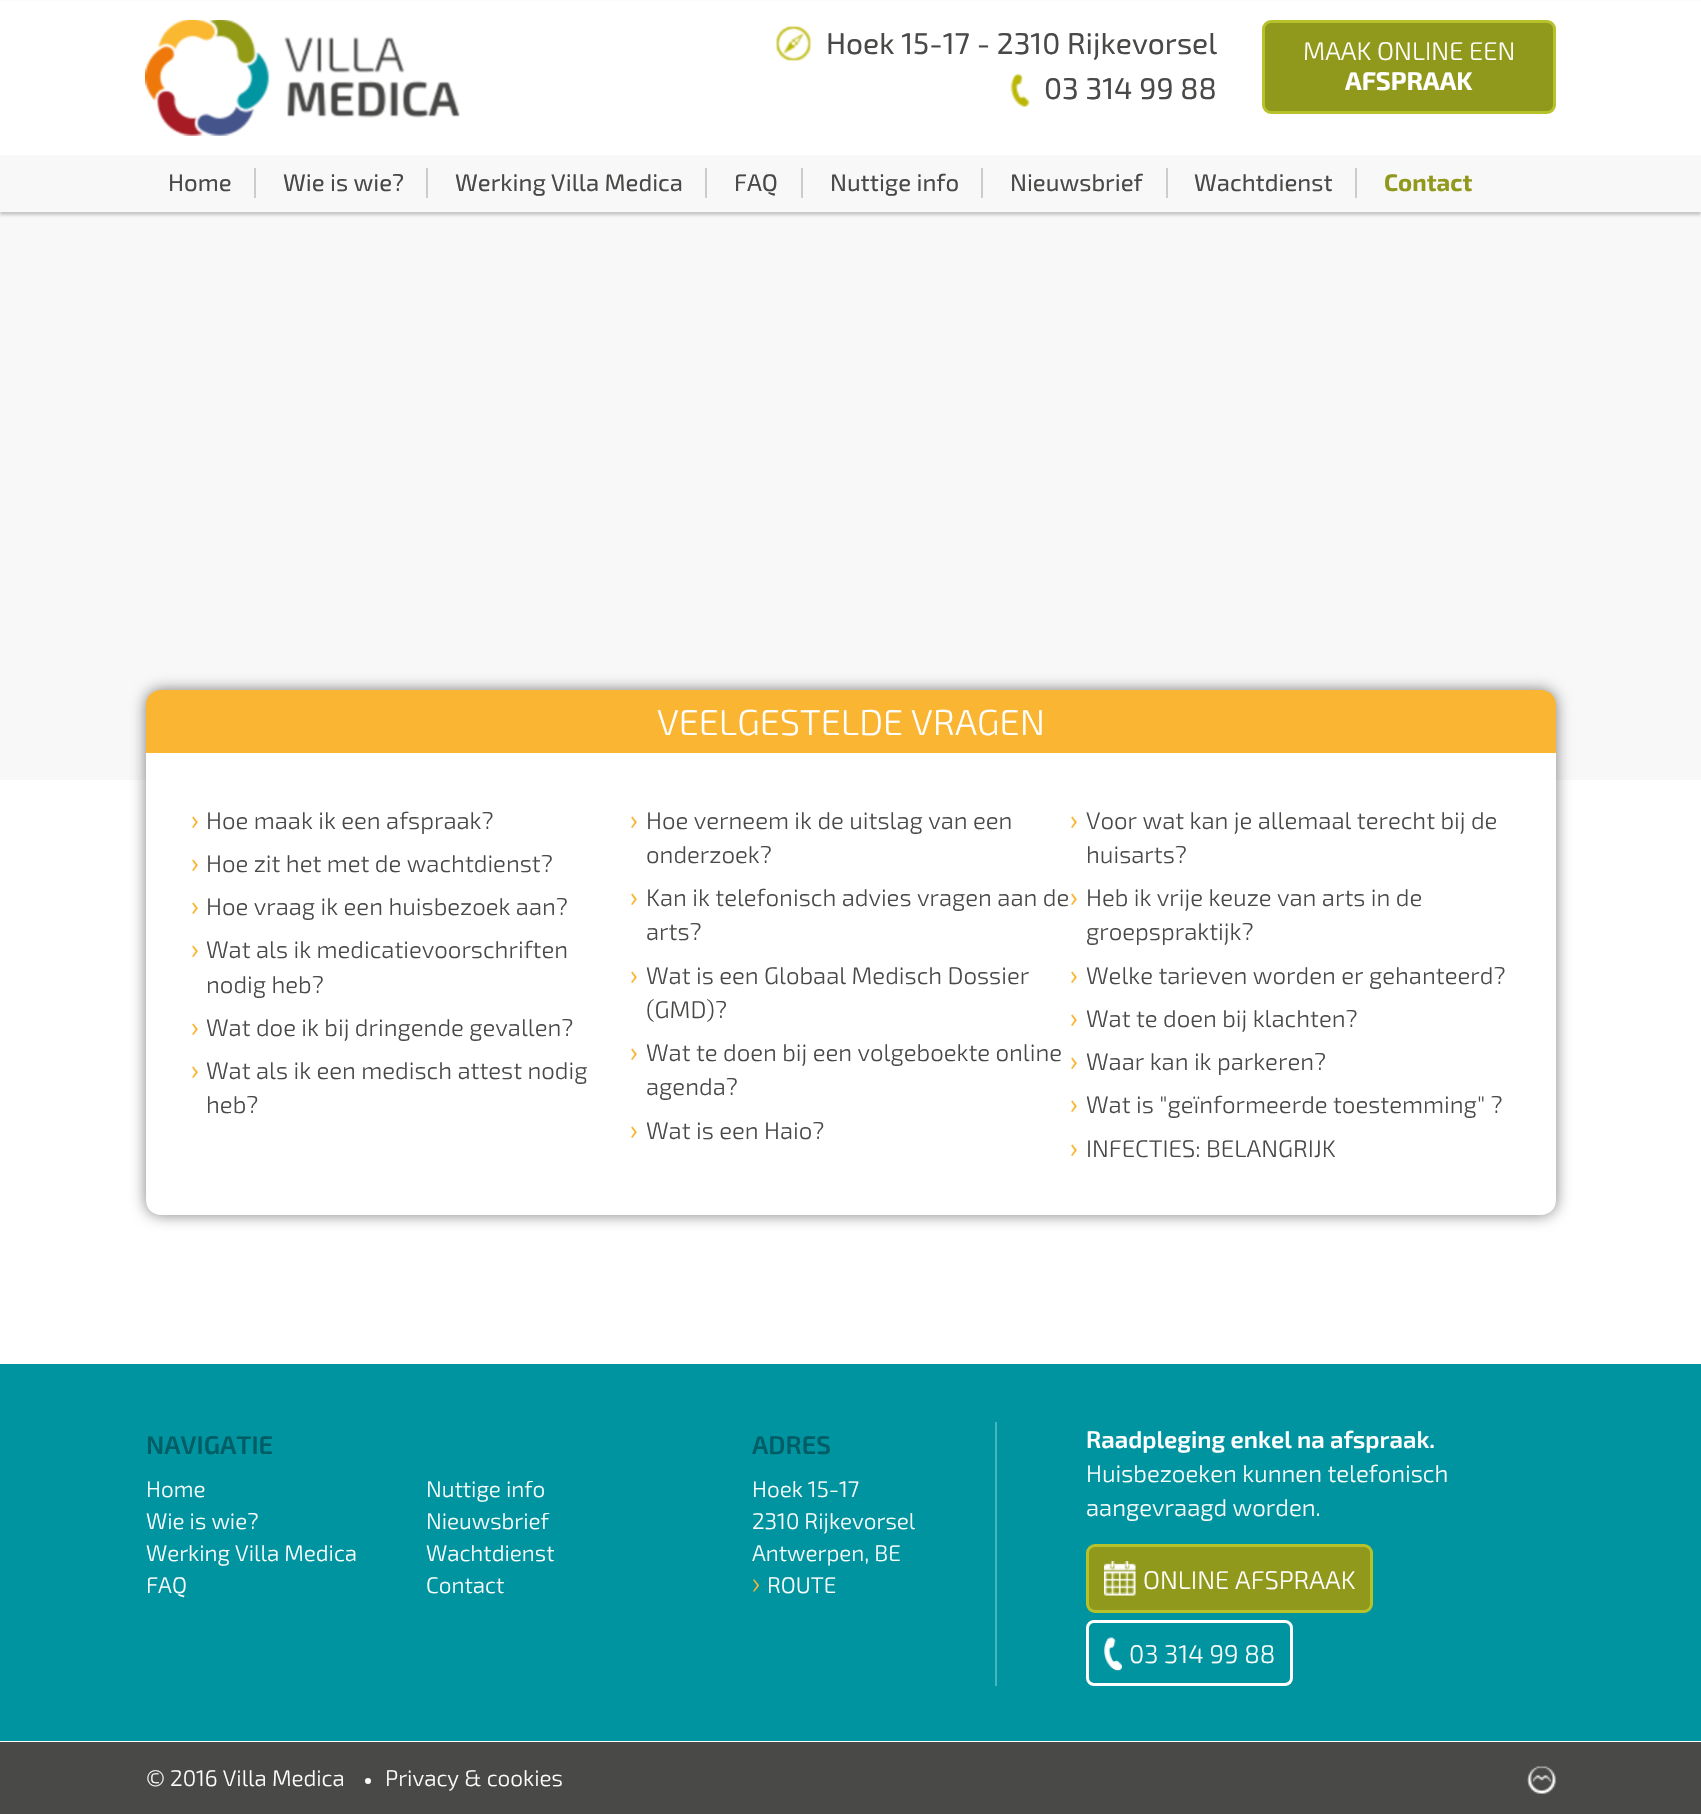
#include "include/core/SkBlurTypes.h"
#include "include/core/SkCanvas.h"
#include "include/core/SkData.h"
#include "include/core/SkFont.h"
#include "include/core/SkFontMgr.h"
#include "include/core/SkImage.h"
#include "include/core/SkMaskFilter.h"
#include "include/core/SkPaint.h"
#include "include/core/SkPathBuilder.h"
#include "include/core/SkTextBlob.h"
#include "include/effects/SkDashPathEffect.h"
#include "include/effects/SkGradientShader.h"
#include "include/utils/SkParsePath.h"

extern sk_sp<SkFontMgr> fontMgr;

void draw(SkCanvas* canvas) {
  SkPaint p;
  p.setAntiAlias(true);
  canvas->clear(SK_ColorWHITE);
  p.setColor(SkColorSetRGB(248, 248, 248));
  canvas->drawRect(SkRect::MakeLTRB(0, 212, 1701, 780), p);
  p.setColor(SkColorSetARGB(51, 0, 0, 0));
  p.setMaskFilter(SkMaskFilter::MakeBlur(kNormal_SkBlurStyle, 1.5f));
  canvas->drawRect(SkRect::MakeLTRB(0, 3, 1701, 215), p);
  p.setMaskFilter(nullptr);
  p.setColor(SK_ColorWHITE);
  canvas->drawRect(SkRect::MakeLTRB(0, 1, 1701, 155), p);
  canvas->drawImageRect(SkImages::DeferredFromEncodedData(SkData::MakeFromFileName("images/1.png")), SkRect::MakeLTRB(145, 20, 460, 136), SkSamplingOptions());
  canvas->drawImageRect(SkImages::DeferredFromEncodedData(SkData::MakeFromFileName("images/2.png")), SkRect::MakeLTRB(775, 25, 812, 62), SkSamplingOptions());
  canvas->drawImageRect(SkImages::DeferredFromEncodedData(SkData::MakeFromFileName("images/3.png")), SkRect::MakeLTRB(1010, 73, 1030, 107), SkSamplingOptions());
  p.setColor(SkColorSetRGB(145, 153, 28));
  canvas->drawRoundRect(SkRect::MakeLTRB(1263.5f, 21.5f, 1554.5f, 112.5f), 7.5f, 7.5f, p);
  p.setStyle(SkPaint::kStroke_Style);
  p.setStrokeWidth(3);
  p.setColor(SkColorSetRGB(183, 193, 41));
  canvas->drawRoundRect(SkRect::MakeLTRB(1263.5f, 21.5f, 1554.5f, 112.5f), 7.5f, 7.5f, p);
  p.setStyle(SkPaint::kFill_Style);
  p.setColor(SkColorSetRGB(248, 248, 248));
  canvas->drawRect(SkRect::MakeLTRB(0, 155, 1701, 212), p);
  p.setColor(SkColorSetRGB(204, 204, 204));
  canvas->drawRect(SkRect::MakeLTRB(254, 168, 256, 198), p);
  canvas->drawRect(SkRect::MakeLTRB(426, 168, 428, 198), p);
  canvas->drawRect(SkRect::MakeLTRB(705, 168, 707, 198), p);
  canvas->drawRect(SkRect::MakeLTRB(801, 168, 803, 198), p);
  canvas->drawRect(SkRect::MakeLTRB(981, 168, 983, 198), p);
  canvas->drawRect(SkRect::MakeLTRB(1166, 168, 1168, 198), p);
  canvas->drawRect(SkRect::MakeLTRB(1355, 168, 1357, 198), p);
  p.setColor(SkColorSetARGB(128, 0, 0, 0));
  p.setMaskFilter(SkMaskFilter::MakeBlur(kNormal_SkBlurStyle, 7.5f));
  canvas->drawRoundRect(SkRect::MakeLTRB(146, 690, 1556, 1215), 15, 15, p);
  p.setMaskFilter(nullptr);
  p.setColor(SkColorSetRGB(250, 182, 51));
  canvas->drawPath(SkPathBuilder().moveTo(161, 690).lineTo(1541, 690).cubicTo(1549.5f, 690, 1556, 696.5f, 1556, 705).lineTo(1556, 753).lineTo(146, 753).lineTo(146, 705).cubicTo(146, 696.5f, 152.5f, 690, 161, 690).close().detach(), p);
  p.setColor(SK_ColorWHITE);
  canvas->drawPath(SkPathBuilder().moveTo(146, 753).lineTo(1556, 753).lineTo(1556, 1200).cubicTo(1556, 1208.5f, 1549.5f, 1215, 1541, 1215).lineTo(161, 1215).cubicTo(152.5f, 1215, 146, 1208.5f, 146, 1200).close().detach(), p);
  p.setColor(SkColorSetRGB(0, 148, 160));
  canvas->drawRect(SkRect::MakeLTRB(0, 1364, 1701, 1741), p);
  p.setColor(SkColorSetRGB(68, 184, 193));
  canvas->drawRect(SkRect::MakeLTRB(995, 1422, 997, 1686), p);
  p.setColor(SkColorSetRGB(145, 153, 28));
  canvas->drawRoundRect(SkRect::MakeLTRB(1087.5f, 1545.5f, 1371.5f, 1611.5f), 7.5f, 7.5f, p);
  p.setStyle(SkPaint::kStroke_Style);
  p.setColor(SkColorSetRGB(183, 193, 41));
  canvas->drawRoundRect(SkRect::MakeLTRB(1087.5f, 1545.5f, 1371.5f, 1611.5f), 7.5f, 7.5f, p);
  canvas->drawImageRect(SkImages::DeferredFromEncodedData(SkData::MakeFromFileName("images/4.png")), SkRect::MakeLTRB(1104, 1561, 1136, 1596), SkSamplingOptions());
  p.setColor(SK_ColorWHITE);
  canvas->drawRoundRect(SkRect::MakeLTRB(1087.5f, 1621.5f, 1291.5f, 1684.5f), 6.5f, 6.5f, p);
  canvas->drawImageRect(SkImages::DeferredFromEncodedData(SkData::MakeFromFileName("images/5.png")), SkRect::MakeLTRB(1104, 1637, 1122, 1671), SkSamplingOptions());
  p.setStyle(SkPaint::kFill_Style);
  p.setColor(SkColorSetRGB(73, 73, 72));
  canvas->drawRect(SkRect::MakeLTRB(0, 1742, 1701, 1814), p);
  p.setColor(SK_ColorWHITE);
  canvas->drawCircle(368, 1781, 3, p);
  canvas->drawImageRect(SkImages::DeferredFromEncodedData(SkData::MakeFromFileName("images/6.png")), SkRect::MakeLTRB(1527, 1766, 1556, 1794), SkSamplingOptions());
  SkFont font1(fontMgr->matchFamilyStyle("Exo 2", SkFontStyle::Normal()), 30);
  font1.setSubpixel(true);
  p.setColor(SkColorSetRGB(73, 73, 72));
  canvas->drawString("Hoek 15-17 - 2310 Rijkevorsel", 826, 54, font1, p);
  canvas->drawString("03 314 99 88", 1044, 99, font1, p);
  SkFont font2(fontMgr->matchFamilyStyle("Exo 2", SkFontStyle(300, SkFontStyle::kNormal_Width, SkFontStyle::kUpright_Slant)), 25.5f);
  font2.setSubpixel(true);
  p.setColor(SK_ColorWHITE);
  canvas->drawString("MAAK ONLINE EEN", 1303, 60, font2, p);
  SkFont font3(fontMgr->matchFamilyStyle("Exo 2", SkFontStyle::Bold()), 25.5f);
  font3.setSubpixel(true);
  canvas->drawString("AFSPRAAK", 1345, 90, font3, p);
  SkFont font4(fontMgr->matchFamilyStyle("Exo 2", SkFontStyle::Normal()), 24);
  font4.setSubpixel(true);
  p.setColor(SkColorSetRGB(73, 73, 72));
  canvas->drawString("Home", 168, 191, font4, p);
  canvas->drawString("Wie is wie?", 283, 191, font4, p);
  canvas->drawString("Werking Villa Medica", 455, 191, font4, p);
  canvas->drawString("FAQ", 734, 191, font4, p);
  canvas->drawString("Nuttige info", 830, 191, font4, p);
  canvas->drawString("Nieuwsbrief", 1010, 191, font4, p);
  canvas->drawString("Wachtdienst", 1194, 191, font4, p);
  SkFont font5(fontMgr->matchFamilyStyle("Exo 2", SkFontStyle::Bold()), 24);
  font5.setSubpixel(true);
  p.setColor(SkColorSetRGB(145, 153, 28));
  canvas->drawString("Contact", 1384, 191, font5, p);
  SkFont font6(fontMgr->matchFamilyStyle("Exo 2", SkFontStyle(300, SkFontStyle::kNormal_Width, SkFontStyle::kUpright_Slant)), 36);
  font6.setSubpixel(true);
  p.setColor(SK_ColorWHITE);
  canvas->drawString("VEELGESTELDE VRAGEN", 657, 735, font6, p);
  SkFont font7(fontMgr->matchFamilyStyle("Exo 2", SkFontStyle::Normal()), 27);
  font7.setSubpixel(true);
  p.setColor(SkColorSetRGB(250, 182, 51));
  canvas->drawString("›", 191, 829, font7, p);
  SkFont font8(fontMgr->matchFamilyStyle("Exo 2", SkFontStyle(300, SkFontStyle::kNormal_Width, SkFontStyle::kUpright_Slant)), 24);
  font8.setSubpixel(true);
  p.setColor(SkColorSetRGB(73, 73, 72));
  canvas->drawString("Hoe maak ik een afspraak?", 206, 829, font8, p);
  p.setColor(SkColorSetRGB(250, 182, 51));
  canvas->drawString("›", 630, 829, font7, p);
  p.setColor(SkColorSetRGB(73, 73, 72));
  canvas->drawString("Hoe verneem ik de uitslag van een", 646, 829, font8, p);
  canvas->drawString("onderzoek?", 646, 863, font8, p);
  p.setColor(SkColorSetRGB(250, 182, 51));
  canvas->drawString("›", 1070, 829, font7, p);
  p.setColor(SkColorSetRGB(73, 73, 72));
  canvas->drawString("Voor wat kan je allemaal terecht bij de", 1086, 829, font8, p);
  canvas->drawString("huisarts?", 1086, 863, font8, p);
  p.setColor(SkColorSetRGB(250, 182, 51));
  canvas->drawString("›", 191, 872, font7, p);
  p.setColor(SkColorSetRGB(73, 73, 72));
  canvas->drawString("Hoe zit het met de wachtdienst?", 206, 872, font8, p);
  p.setColor(SkColorSetRGB(250, 182, 51));
  canvas->drawString("›", 191, 915, font7, p);
  p.setColor(SkColorSetRGB(73, 73, 72));
  canvas->drawString("Hoe vraag ik een huisbezoek aan?", 206, 915, font8, p);
  p.setColor(SkColorSetRGB(250, 182, 51));
  canvas->drawString("›", 630, 906, font7, p);
  p.setColor(SkColorSetRGB(73, 73, 72));
  canvas->drawString("Kan ik telefonisch advies vragen aan de", 646, 906, font8, p);
  canvas->drawString("arts?", 646, 940, font8, p);
  p.setColor(SkColorSetRGB(250, 182, 51));
  canvas->drawString("›", 1070, 906, font7, p);
  p.setColor(SkColorSetRGB(73, 73, 72));
  canvas->drawString("Heb ik vrije keuze van arts in de", 1086, 906, font8, p);
  canvas->drawString("groepspraktijk?", 1086, 940, font8, p);
  p.setColor(SkColorSetRGB(250, 182, 51));
  canvas->drawString("›", 191, 958, font7, p);
  p.setColor(SkColorSetRGB(73, 73, 72));
  canvas->drawString("Wat als ik medicatievoorschriften", 206, 958, font8, p);
  canvas->drawString("nodig heb?", 206, 993, font8, p);
  p.setColor(SkColorSetRGB(250, 182, 51));
  canvas->drawString("›", 630, 984, font7, p);
  p.setColor(SkColorSetRGB(73, 73, 72));
  canvas->drawString("Wat is een Globaal Medisch Dossier", 646, 984, font8, p);
  canvas->drawString("(GMD)?", 646, 1018, font8, p);
  p.setColor(SkColorSetRGB(250, 182, 51));
  canvas->drawString("›", 1070, 984, font7, p);
  p.setColor(SkColorSetRGB(73, 73, 72));
  canvas->drawString("Welke tarieven worden er gehanteerd?", 1086, 984, font8, p);
  p.setColor(SkColorSetRGB(250, 182, 51));
  canvas->drawString("›", 191, 1036, font7, p);
  p.setColor(SkColorSetRGB(73, 73, 72));
  canvas->drawString("Wat doe ik bij dringende gevallen?", 206, 1036, font8, p);
  p.setColor(SkColorSetRGB(250, 182, 51));
  canvas->drawString("›", 1070, 1027, font7, p);
  p.setColor(SkColorSetRGB(73, 73, 72));
  canvas->drawString("Wat te doen bij klachten?", 1086, 1027, font8, p);
  p.setColor(SkColorSetRGB(250, 182, 51));
  canvas->drawString("›", 191, 1079, font7, p);
  p.setColor(SkColorSetRGB(73, 73, 72));
  canvas->drawString("Wat als ik een medisch attest nodig", 206, 1079, font8, p);
  canvas->drawString("heb?", 206, 1113, font8, p);
  p.setColor(SkColorSetRGB(250, 182, 51));
  canvas->drawString("›", 630, 1061, font7, p);
  p.setColor(SkColorSetRGB(73, 73, 72));
  canvas->drawString("Wat te doen bij een volgeboekte online", 646, 1061, font8, p);
  canvas->drawString("agenda?", 646, 1095, font8, p);
  p.setColor(SkColorSetRGB(250, 182, 51));
  canvas->drawString("›", 1070, 1070, font7, p);
  p.setColor(SkColorSetRGB(73, 73, 72));
  canvas->drawString("Waar kan ik parkeren?", 1086, 1070, font8, p);
  p.setColor(SkColorSetRGB(250, 182, 51));
  canvas->drawString("›", 1070, 1113, font7, p);
  p.setColor(SkColorSetRGB(73, 73, 72));
  canvas->drawString("Wat is \"geïnformeerde toestemming\" ?", 1086, 1113, font8, p);
  p.setColor(SkColorSetRGB(250, 182, 51));
  canvas->drawString("›", 630, 1139, font7, p);
  p.setColor(SkColorSetRGB(73, 73, 72));
  canvas->drawString("Wat is een Haio?", 646, 1139, font8, p);
  p.setColor(SkColorSetRGB(250, 182, 51));
  canvas->drawString("›", 1070, 1157, font7, p);
  p.setColor(SkColorSetRGB(73, 73, 72));
  canvas->drawString("INFECTIES: BELANGRIJK", 1086, 1157, font8, p);
  SkFont font9(fontMgr->matchFamilyStyle("Exo 2", SkFontStyle(600, SkFontStyle::kNormal_Width, SkFontStyle::kUpright_Slant)), 25.5f);
  font9.setSubpixel(true);
  p.setColor(SkColorSetRGB(0, 93, 101));
  canvas->drawString("NAVIGATIE", 146, 1454, font9, p);
  SkFont font10(fontMgr->matchFamilyStyle("Exo 2", SkFontStyle(300, SkFontStyle::kNormal_Width, SkFontStyle::kUpright_Slant)), 22.5f);
  font10.setSubpixel(true);
  p.setColor(SK_ColorWHITE);
  canvas->drawString("Home", 146, 1497, font10, p);
  canvas->drawString("Nuttige info", 426, 1497, font10, p);
  canvas->drawString("Wie is wie?", 146, 1529, font10, p);
  canvas->drawString("Nieuwsbrief", 426, 1529, font10, p);
  canvas->drawString("Werking Villa Medica", 146, 1561, font10, p);
  canvas->drawString("Wachtdienst", 426, 1561, font10, p);
  canvas->drawString("FAQ", 146, 1593, font10, p);
  canvas->drawString("Contact", 426, 1593, font10, p);
  p.setColor(SkColorSetRGB(0, 93, 101));
  canvas->drawString("ADRES", 752, 1454, font9, p);
  p.setColor(SK_ColorWHITE);
  canvas->drawString("Hoek 15-17", 752, 1497, font10, p);
  canvas->drawString("2310 Rijkevorsel", 752, 1529, font10, p);
  canvas->drawString("Antwerpen, BE", 752, 1561, font10, p);
  SkFont font11(fontMgr->matchFamilyStyle("Exo 2", SkFontStyle(300, SkFontStyle::kNormal_Width, SkFontStyle::kUpright_Slant)), 30);
  font11.setSubpixel(true);
  p.setColor(SkColorSetRGB(250, 182, 51));
  canvas->drawString("›", 752, 1593, font11, p);
  p.setColor(SK_ColorWHITE);
  canvas->drawString("ROUTE", 767, 1593, font10, p);
  SkFont font12(fontMgr->matchFamilyStyle("Exo 2", SkFontStyle(600, SkFontStyle::kNormal_Width, SkFontStyle::kUpright_Slant)), 24);
  font12.setSubpixel(true);
  canvas->drawString("Raadpleging enkel na afspraak.", 1086, 1448, font12, p);
  canvas->drawString("Huisbezoeken kunnen telefonisch", 1086, 1482, font8, p);
  canvas->drawString("aangevraagd worden.", 1086, 1516, font8, p);
  canvas->drawString("ONLINE AFSPRAAK", 1143, 1589, font2, p);
  canvas->drawString("03 314 99 88", 1129, 1663, font2, p);
  canvas->drawString("© 2016 Villa Medica", 146, 1786, font10, p);
  canvas->drawString("Privacy & cookies", 385, 1786, font10, p);
}
